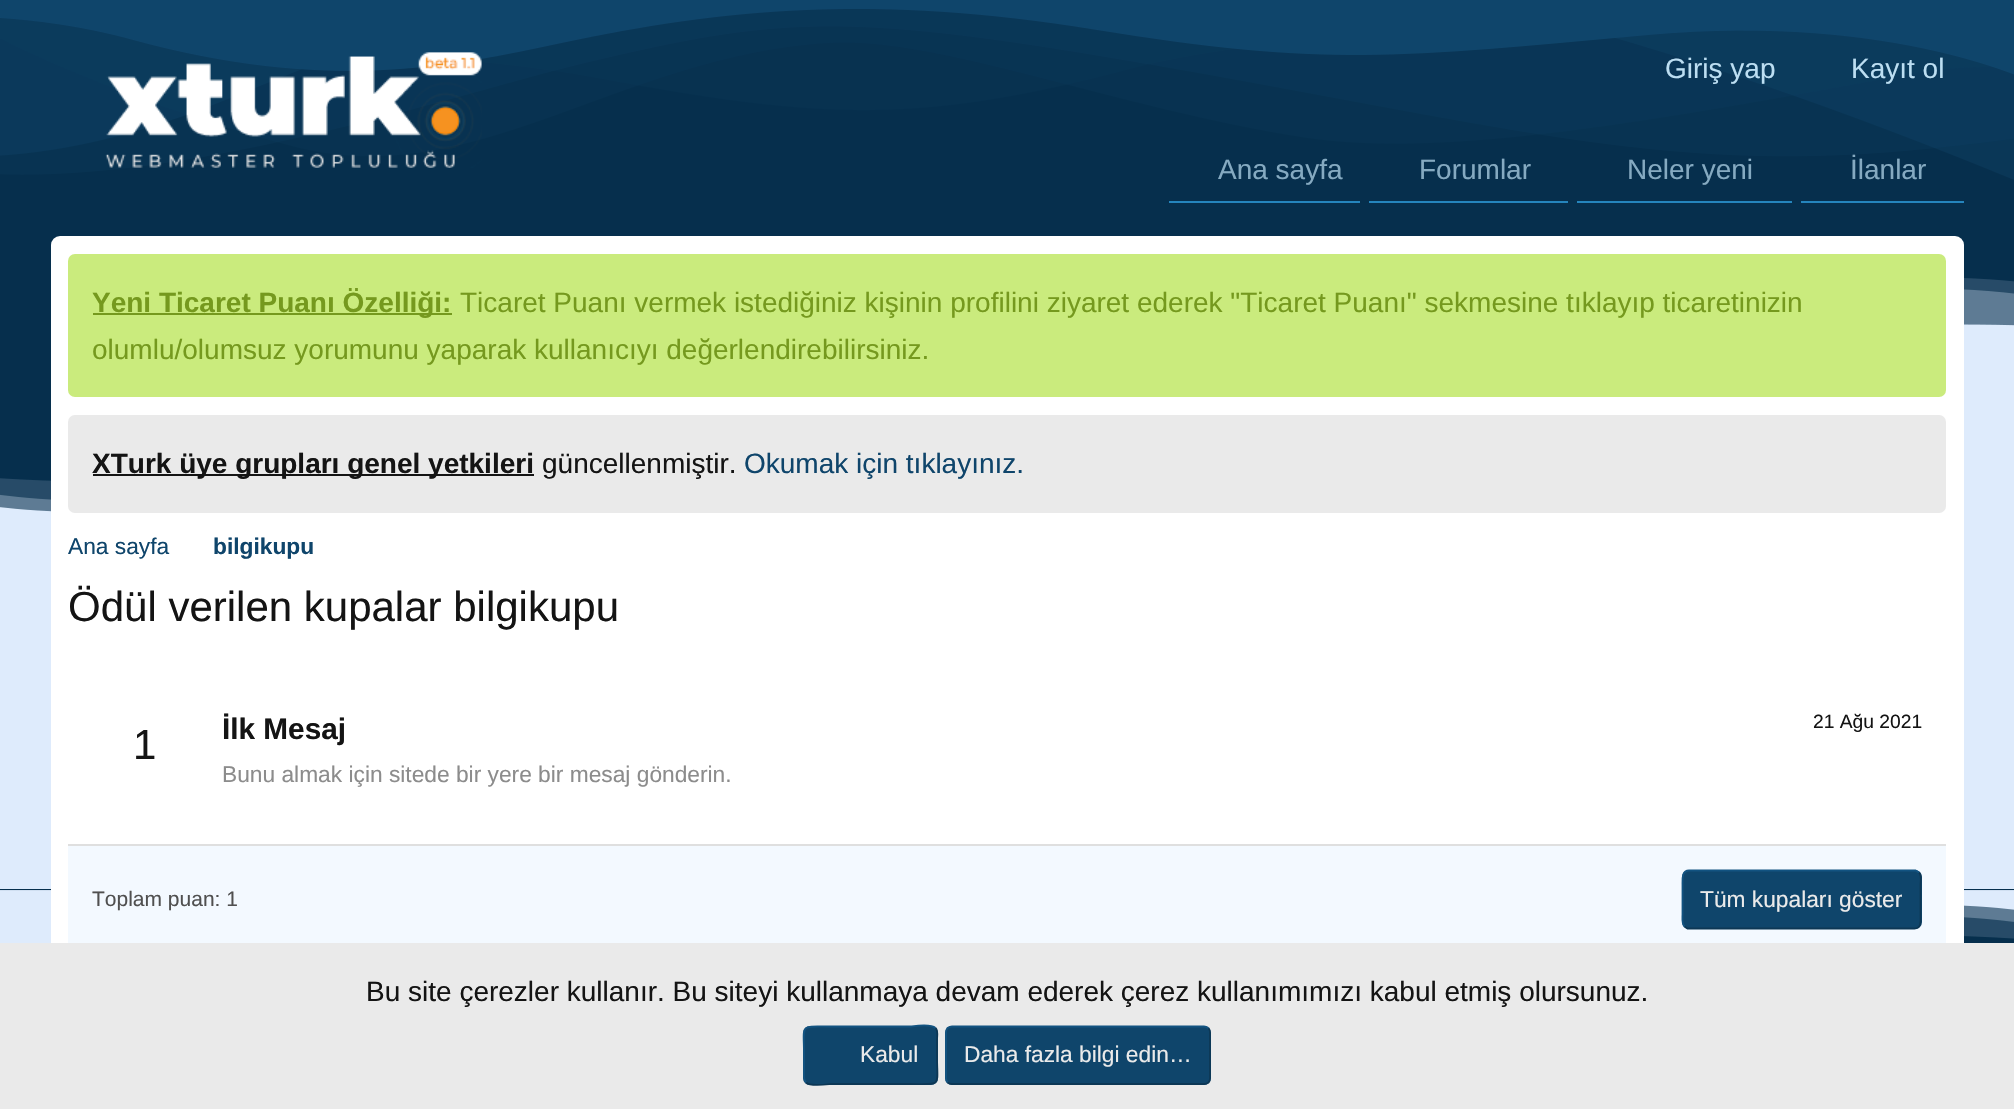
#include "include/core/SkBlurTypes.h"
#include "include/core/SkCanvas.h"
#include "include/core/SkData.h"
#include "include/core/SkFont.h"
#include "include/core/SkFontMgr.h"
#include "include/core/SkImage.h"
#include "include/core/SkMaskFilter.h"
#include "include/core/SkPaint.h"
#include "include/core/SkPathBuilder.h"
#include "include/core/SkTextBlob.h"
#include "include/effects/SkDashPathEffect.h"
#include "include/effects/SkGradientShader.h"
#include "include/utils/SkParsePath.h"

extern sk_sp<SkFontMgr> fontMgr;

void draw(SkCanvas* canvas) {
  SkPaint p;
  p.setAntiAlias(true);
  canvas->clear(SkColorSetRGB(222, 235, 252));
  p.setColor(SkColorSetRGB(6, 47, 77));
  canvas->drawRect(SkRect::MakeLTRB(0, 8, 2014, 512), p);
  canvas->drawImageRect(SkImages::DeferredFromEncodedData(SkData::MakeFromFileName("images/1.png")), SkRect::MakeLTRB(0, 0, 2014, 180), SkSamplingOptions());
  canvas->drawImageRect(SkImages::DeferredFromEncodedData(SkData::MakeFromFileName("images/2.png")), SkRect::MakeLTRB(0, 278, 2014, 525), SkSamplingOptions());
  canvas->drawImageRect(SkImages::DeferredFromEncodedData(SkData::MakeFromFileName("images/3.png")), SkRect::MakeLTRB(105, 52, 482, 168), SkSamplingOptions());
  p.setColor(SkColorSetRGB(37, 133, 189));
  canvas->drawRect(SkRect::MakeLTRB(1169, 201, 1360, 203), p);
  canvas->drawRect(SkRect::MakeLTRB(1369, 201, 1568, 203), p);
  canvas->drawRect(SkRect::MakeLTRB(1577, 201, 1792, 203), p);
  canvas->drawRect(SkRect::MakeLTRB(1801, 201, 1964, 203), p);
  p.setColor(SkColorSetRGB(6, 47, 77));
  canvas->drawRect(SkRect::MakeLTRB(0, 889, 2014, 943), p);
  canvas->drawImageRect(SkImages::DeferredFromEncodedData(SkData::MakeFromFileName("images/4.png")), SkRect::MakeLTRB(0, 890, 2014, 943), SkSamplingOptions());
  p.setColor(SK_ColorWHITE);
  canvas->drawRoundRect(SkRect::MakeLTRB(51, 236, 1964, 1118), 9, 9, p);
  p.setColor(SkColorSetRGB(202, 235, 125));
  canvas->drawRoundRect(SkRect::MakeLTRB(68, 254, 1946, 397), 7, 7, p);
  p.setColor(SkColorSetRGB(117, 153, 30));
  canvas->drawRect(SkRect::MakeLTRB(93, 313, 452, 315), p);
  p.setColor(SkColorSetRGB(234, 234, 234));
  canvas->drawRoundRect(SkRect::MakeLTRB(68, 415, 1946, 513), 7, 7, p);
  p.setColor(SkColorSetRGB(20, 20, 20));
  canvas->drawRect(SkRect::MakeLTRB(93, 474, 534, 476), p);
  p.setColor(SkColorSetRGB(243, 249, 255));
  canvas->drawRect(SkRect::MakeLTRB(68, 846, 1946, 943), p);
  p.setColor(SkColorSetRGB(223, 223, 223));
  canvas->drawRect(SkRect::MakeLTRB(68, 844, 1946, 846), p);
  p.setColor(SkColorSetRGB(15, 69, 107));
  canvas->drawRoundRect(SkRect::MakeLTRB(1682, 870, 1922, 929), 7, 7, p);
  p.setStyle(SkPaint::kStroke_Style);
  p.setStrokeWidth(1.8f);
  p.setColor(SkColorSetRGB(12, 55, 85));
  canvas->drawPath(SkPathBuilder().moveTo(1919, 872.5f).cubicTo(1922, 875.5f, 1920.5f, 881, 1920.5f, 884.5f).lineTo(1920.5f, 914.5f).cubicTo(1920.5f, 919.5f, 1922, 928.5f, 1914.5f, 928.5f).lineTo(1687.5f, 928.5f).lineTo(1684.5f, 926.5f).detach(), p);
  p.setColor(SkColorSetRGB(18, 83, 129));
  canvas->drawPath(SkPathBuilder().moveTo(1684.5f, 926.5f).cubicTo(1681.5f, 923.5f, 1682.5f, 918, 1682.5f, 914.5f).lineTo(1682.5f, 884.5f).cubicTo(1682.5f, 879.5f, 1681.5f, 870.5f, 1689, 870.5f).lineTo(1915.5f, 870.5f).lineTo(1919, 872.5f).detach(), p);
  p.setStyle(SkPaint::kFill_Style);
  p.setColor(SkColorSetRGB(234, 234, 234));
  canvas->drawRect(SkRect::MakeLTRB(0, 943, 2014, 1109), p);
  p.setColor(SkColorSetRGB(15, 69, 107));
  canvas->drawRoundRect(SkRect::MakeLTRB(803, 1026, 938, 1085), 7, 7, p);
  p.setStyle(SkPaint::kStroke_Style);
  p.setColor(SkColorSetRGB(12, 55, 85));
  canvas->drawPath(SkPathBuilder().moveTo(935.5f, 1028).cubicTo(938.5f, 1031, 937, 1036.5f, 937, 1040).lineTo(937, 1055).cubicTo(937, 1087.5f, 943, 1084, 911, 1084).lineTo(830.5f, 1084).cubicTo(829.5f, 1084, 810.5f, 1087, 806, 1082.5f).detach(), p);
  p.setColor(SkColorSetRGB(18, 83, 129));
  canvas->drawPath(SkPathBuilder().moveTo(806, 1082.5f).cubicTo(803, 1079.5f, 804, 1074, 804, 1070.5f).lineTo(804, 1055).cubicTo(804, 1023, 798.5f, 1026.5f, 830.5f, 1026.5f).lineTo(911, 1026.5f).cubicTo(911.5f, 1026.5f, 930.5f, 1023.5f, 935.5f, 1028).detach(), p);
  p.setStyle(SkPaint::kFill_Style);
  p.setColor(SkColorSetRGB(15, 69, 107));
  canvas->drawRoundRect(SkRect::MakeLTRB(945, 1026, 1211, 1085), 7, 7, p);
  p.setStyle(SkPaint::kStroke_Style);
  p.setColor(SkColorSetRGB(12, 55, 85));
  canvas->drawPath(SkPathBuilder().moveTo(1208.5f, 1028).cubicTo(1209.5f, 1029.5f, 1210, 1031, 1210, 1032.5f).lineTo(1210, 1078).cubicTo(1210, 1079.5f, 1209.5f, 1081, 1208.5f, 1082.5f).cubicTo(1207, 1083.5f, 1205.5f, 1084, 1204, 1084).lineTo(952, 1084).cubicTo(950.5f, 1084, 949, 1083.5f, 947.5f, 1082.5f).detach(), p);
  p.setColor(SkColorSetRGB(18, 83, 129));
  canvas->drawPath(SkPathBuilder().moveTo(947.5f, 1082.5f).cubicTo(946.5f, 1081, 946, 1079.5f, 946, 1078).lineTo(946, 1032.5f).cubicTo(946, 1031, 946.5f, 1029.5f, 947.5f, 1028).cubicTo(949, 1027, 950.5f, 1026.5f, 952, 1026.5f).lineTo(1204, 1026.5f).cubicTo(1205.5f, 1026.5f, 1207, 1027, 1208.5f, 1028).detach(), p);
  SkFont font1(fontMgr->matchFamilyStyle("Liberation Sans", SkFontStyle::Normal()), 28);
  font1.setSubpixel(true);
  p.setStyle(SkPaint::kFill_Style);
  p.setColor(SkColorSetRGB(188, 222, 242));
  canvas->drawString("Giriş yap", 1665, 78, font1, p);
  canvas->drawString("Kayıt ol", 1851, 78, font1, p);
  p.setColor(SkColorSetRGB(133, 170, 193));
  canvas->drawString("Ana sayfa", 1218, 179, font1, p);
  canvas->drawString("Forumlar", 1419, 179, font1, p);
  canvas->drawString("Neler yeni", 1627, 179, font1, p);
  canvas->drawString("İlanlar", 1850, 179, font1, p);
  SkFont font2(fontMgr->matchFamilyStyle("Liberation Sans", SkFontStyle::Bold()), 28);
  font2.setSubpixel(true);
  p.setColor(SkColorSetRGB(117, 153, 30));
  canvas->drawString("Yeni Ticaret Puanı Özelliği:", 92, 312, font2, p);
  canvas->drawString("Ticaret Puanı vermek istediğiniz kişinin profilini ziyaret ederek \"Ticaret Puanı\" sekmesine tıklayıp ticaretinizin", 460, 312, font1, p);
  canvas->drawString("olumlu/olumsuz yorumunu yaparak kullanıcıyı değerlendirebilirsiniz.", 92, 359, font1, p);
  p.setColor(SkColorSetRGB(20, 20, 20));
  canvas->drawString("XTurk üye grupları genel yetkileri", 92, 473, font2, p);
  canvas->drawString("güncellenmiştir.", 542, 473, font1, p);
  p.setColor(SkColorSetRGB(15, 69, 107));
  canvas->drawString("Okumak için tıklayınız.", 744, 473, font1, p);
  SkFont font3(fontMgr->matchFamilyStyle("Liberation Sans", SkFontStyle::Normal()), 22.75f);
  font3.setSubpixel(true);
  canvas->drawString("Ana sayfa", 68, 554, font3, p);
  SkFont font4(fontMgr->matchFamilyStyle("Liberation Sans", SkFontStyle::Bold()), 22.75f);
  font4.setSubpixel(true);
  canvas->drawString("bilgikupu", 213, 554, font4, p);
  SkFont font5(fontMgr->matchFamilyStyle("Liberation Sans", SkFontStyle::Normal()), 42);
  font5.setSubpixel(true);
  p.setColor(SkColorSetRGB(20, 20, 20));
  canvas->drawString("Ödül verilen kupalar bilgikupu", 68, 621, font5, p);
  canvas->drawString("1", 133, 759, font5, p);
  SkFont font6(fontMgr->matchFamilyStyle("Liberation Sans", SkFontStyle::Bold()), 29.75f);
  font6.setSubpixel(true);
  canvas->drawString("İlk Mesaj", 222, 739, font6, p);
  SkFont font7(fontMgr->matchFamilyStyle("Liberation Sans", SkFontStyle::Normal()), 19.25f);
  font7.setSubpixel(true);
  canvas->drawString("21 Ağu 2021", 1813, 728, font7, p);
  p.setColor(SkColorSetRGB(140, 140, 140));
  canvas->drawString("Bunu almak için sitede bir yere bir mesaj gönderin.", 222, 782, font3, p);
  SkFont font8(fontMgr->matchFamilyStyle("Liberation Sans", SkFontStyle::Normal()), 21);
  font8.setSubpixel(true);
  p.setColor(SkColorSetRGB(80, 80, 80));
  canvas->drawString("Toplam puan: 1", 92, 906, font8, p);
  p.setColor(SkColorSetRGB(234, 234, 234));
  canvas->drawString("Tüm kupaları göster", 1700, 907, font3, p);
  p.setColor(SkColorSetRGB(20, 20, 20));
  canvas->drawString("Bu site çerezler kullanır. Bu siteyi kullanmaya devam ederek çerez kullanımımızı kabul etmiş olursunuz.", 366, 1001, font1, p);
  p.setColor(SkColorSetRGB(234, 234, 234));
  canvas->drawString("Kabul", 860, 1062, font3, p);
  canvas->drawString("Daha fazla bilgi edin…", 964, 1062, font3, p);
}
